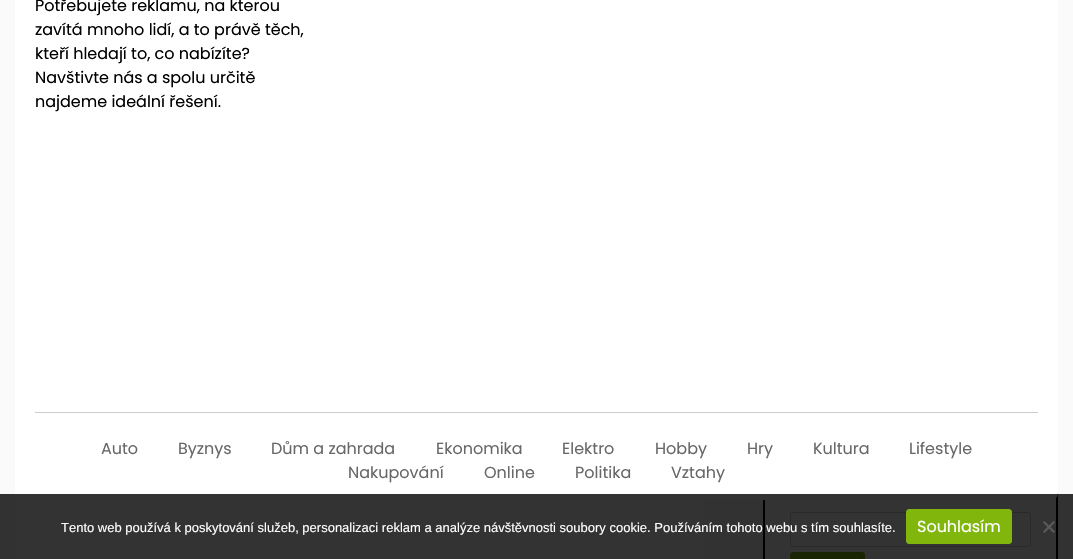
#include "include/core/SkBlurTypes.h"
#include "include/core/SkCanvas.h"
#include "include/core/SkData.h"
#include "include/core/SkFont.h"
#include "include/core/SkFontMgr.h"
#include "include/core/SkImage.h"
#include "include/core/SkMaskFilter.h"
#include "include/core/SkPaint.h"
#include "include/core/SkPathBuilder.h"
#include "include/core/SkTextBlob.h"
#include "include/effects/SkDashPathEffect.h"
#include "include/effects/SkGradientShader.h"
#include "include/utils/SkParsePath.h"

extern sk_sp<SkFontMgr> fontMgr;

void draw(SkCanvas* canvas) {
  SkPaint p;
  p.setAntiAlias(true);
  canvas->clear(SkColorSetRGB(250, 250, 250));
  p.setColor(SK_ColorWHITE);
  canvas->drawRect(SkRect::MakeLTRB(15, 493, 703, 559), p);
  canvas->drawRect(SkRect::MakeLTRB(765, 498, 1056, 559), p);
  p.setStyle(SkPaint::kStroke_Style);
  p.setStrokeWidth(2);
  p.setColor(SK_ColorBLACK);
  canvas->drawRect(SkRect::MakeLTRB(764, 486, 1057, 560), p);
  p.setStyle(SkPaint::kFill_Style);
  p.setColor(SK_ColorWHITE);
  canvas->drawRoundRect(SkRect::MakeLTRB(15, -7, 1058, 500), 7, 7, p);
  p.setColor(SkColorSetRGB(204, 204, 204));
  canvas->drawRect(SkRect::MakeLTRB(35, 412, 1038, 413), p);
  p.setStyle(SkPaint::kStroke_Style);
  p.setStrokeWidth(1);
  canvas->drawRoundRect(SkRect::MakeLTRB(790.5f, 512.5f, 1030.5f, 546.5f), 2.5f, 2.5f, p);
  p.setStyle(SkPaint::kFill_Style);
  p.setColor(SkColorSetRGB(129, 182, 12));
  canvas->drawRoundRect(SkRect::MakeLTRB(790.5f, 552.5f, 864.5f, 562.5f), 2.5f, 2.5f, p);
  p.setStyle(SkPaint::kStroke_Style);
  canvas->drawRoundRect(SkRect::MakeLTRB(790.5f, 552.5f, 864.5f, 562.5f), 2.5f, 2.5f, p);
  p.setStyle(SkPaint::kFill_Style);
  p.setColor(SkColorSetARGB(204, 0, 0, 0));
  canvas->drawRect(SkRect::MakeLTRB(0, 494, 1073, 559), p);
  p.setColor(SkColorSetRGB(129, 182, 12));
  canvas->drawRoundRect(SkRect::MakeLTRB(906.5f, 509.5f, 1011.5f, 543.5f), 2.5f, 2.5f, p);
  p.setStyle(SkPaint::kStroke_Style);
  canvas->drawRoundRect(SkRect::MakeLTRB(906.5f, 509.5f, 1011.5f, 543.5f), 2.5f, 2.5f, p);
  p.setStyle(SkPaint::kFill_Style);
  p.setColor(SkColorSetRGB(90, 90, 90));
  canvas->drawPath(SkPathBuilder().moveTo(1053.5f, 521).lineTo(1055, 522.5f).lineTo(1044.5f, 533).lineTo(1043, 531.5f).close().detach(), p);
  canvas->drawPath(SkPathBuilder().moveTo(1043, 522.5f).lineTo(1044.5f, 521).lineTo(1055, 531.5f).lineTo(1053.5f, 533).close().detach(), p);
  SkFont font1(fontMgr->matchFamilyStyle("Poppins", SkFontStyle::Normal()), 16);
  font1.setSubpixel(true);
  p.setColor(SK_ColorBLACK);
  canvas->drawString("Potřebujete reklamu, na kterou", 35, 11, font1, p);
  canvas->drawString("zavítá mnoho lidí, a to právě těch,", 35, 35, font1, p);
  canvas->drawString("kteří hledají to, co nabízíte?", 35, 59, font1, p);
  canvas->drawString("Navštivte nás a spolu určitě", 35, 83, font1, p);
  canvas->drawString("najdeme ideální řešení.", 35, 107, font1, p);
  p.setColor(SkColorSetRGB(104, 104, 104));
  canvas->drawString("Auto", 101, 454, font1, p);
  canvas->drawString("Byznys", 178, 454, font1, p);
  canvas->drawString("Dům a zahrada", 271, 454, font1, p);
  canvas->drawString("Ekonomika", 436, 454, font1, p);
  canvas->drawString("Elektro", 562, 454, font1, p);
  canvas->drawString("Hobby", 655, 454, font1, p);
  canvas->drawString("Hry", 747, 454, font1, p);
  canvas->drawString("Kultura", 813, 454, font1, p);
  canvas->drawString("Lifestyle", 909, 454, font1, p);
  canvas->drawString("Nakupování", 348, 478, font1, p);
  canvas->drawString("Online", 484, 478, font1, p);
  canvas->drawString("Politika", 575, 478, font1, p);
  canvas->drawString("Vztahy", 671, 478, font1, p);
  SkFont font2(fontMgr->matchFamilyStyle("Liberation Sans", SkFontStyle::Normal()), 13);
  font2.setSubpixel(true);
  p.setColor(SK_ColorWHITE);
  canvas->drawString("Tento web používá k poskytování služeb, personalizaci reklam a analýze návštěvnosti soubory cookie. Používáním tohoto webu s tím souhlasíte.", 61, 532, font2, p);
  canvas->drawString("Souhlasím", 917, 532, font1, p);
}
